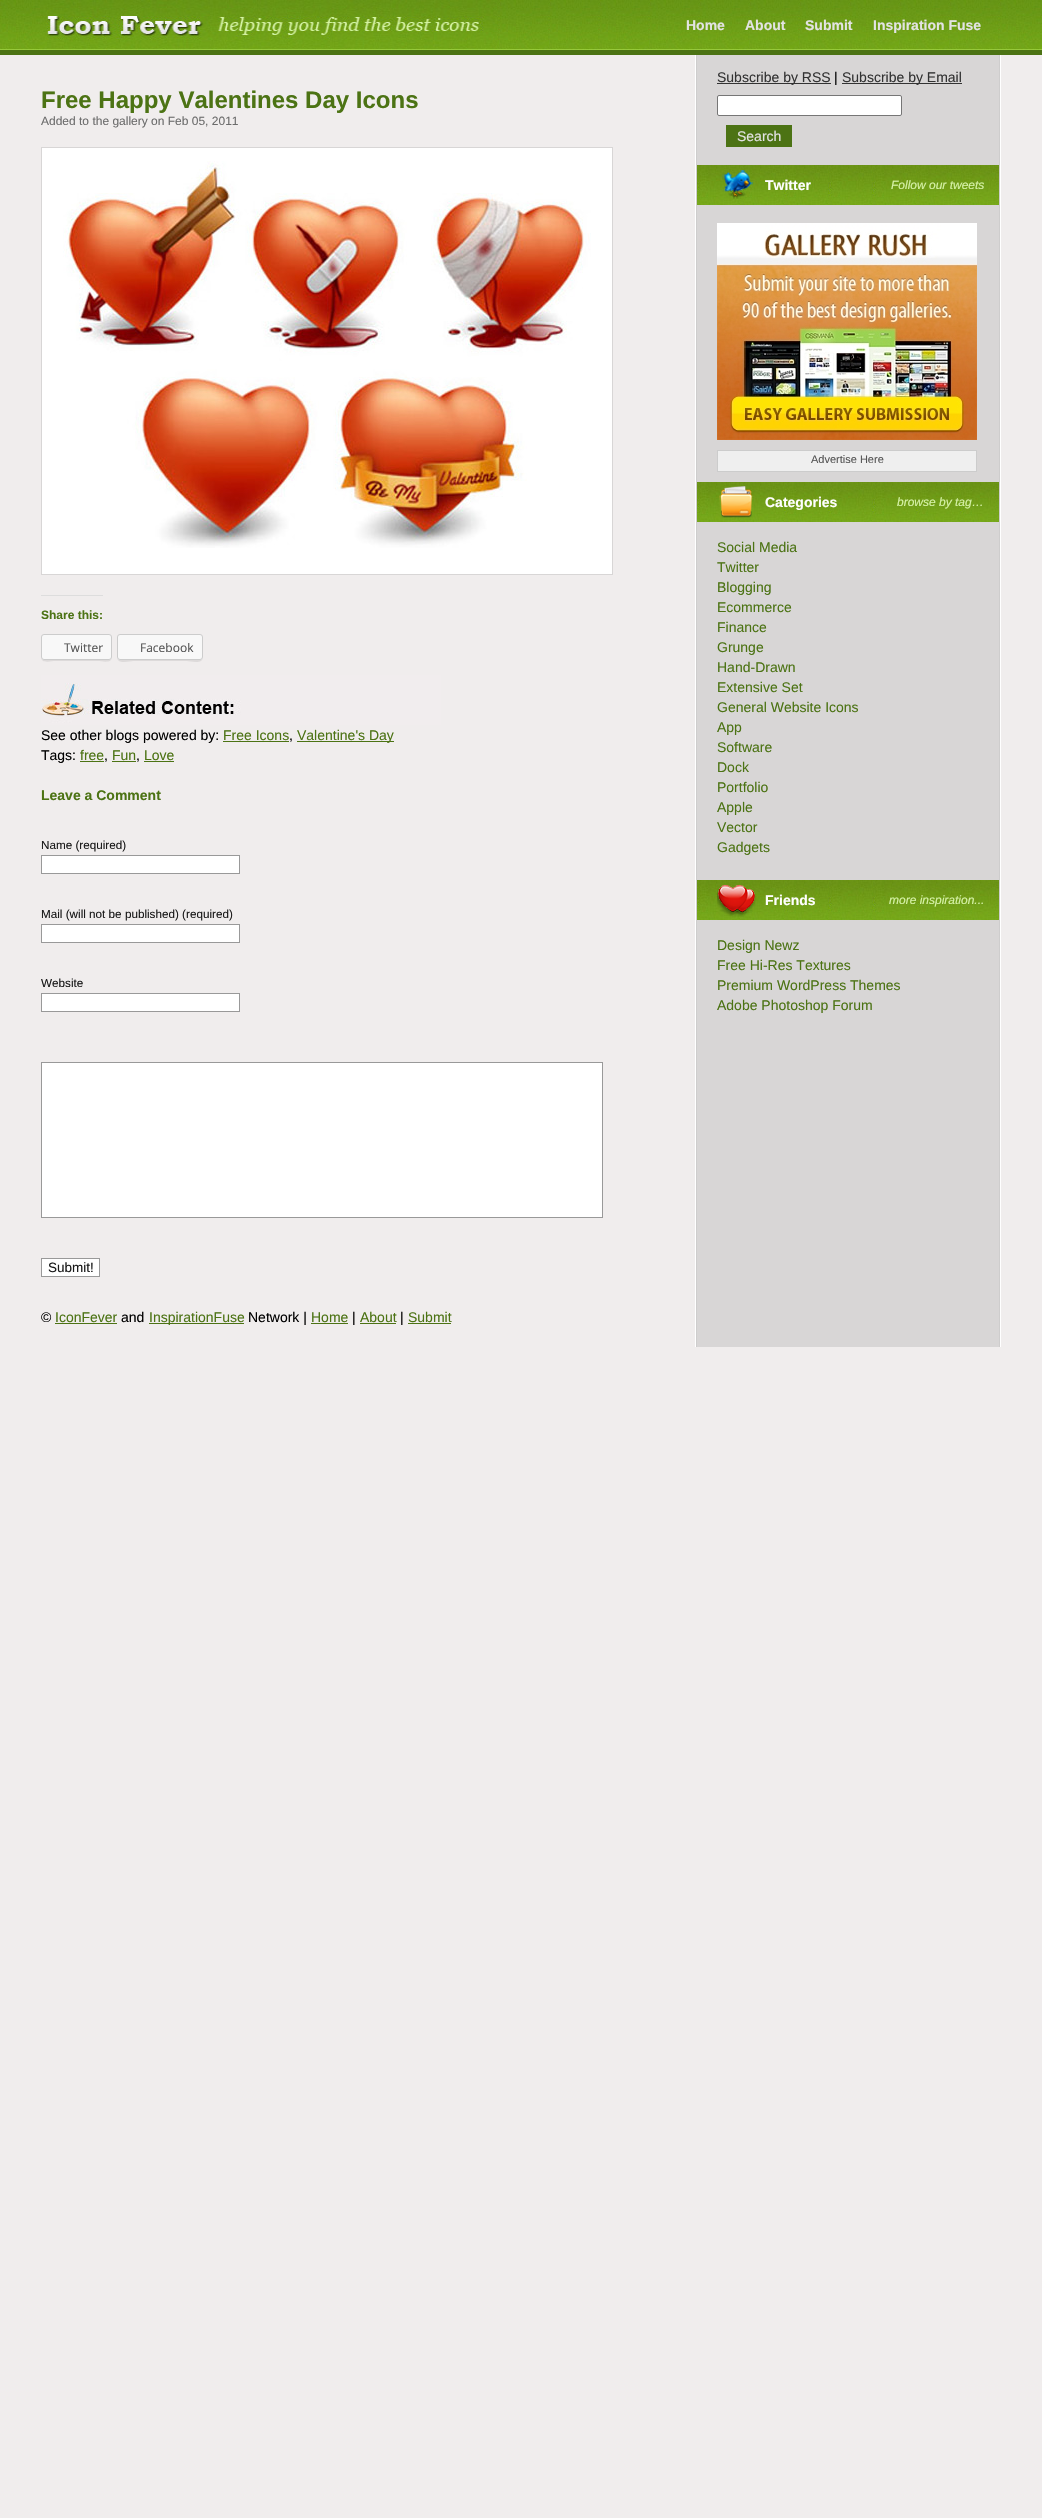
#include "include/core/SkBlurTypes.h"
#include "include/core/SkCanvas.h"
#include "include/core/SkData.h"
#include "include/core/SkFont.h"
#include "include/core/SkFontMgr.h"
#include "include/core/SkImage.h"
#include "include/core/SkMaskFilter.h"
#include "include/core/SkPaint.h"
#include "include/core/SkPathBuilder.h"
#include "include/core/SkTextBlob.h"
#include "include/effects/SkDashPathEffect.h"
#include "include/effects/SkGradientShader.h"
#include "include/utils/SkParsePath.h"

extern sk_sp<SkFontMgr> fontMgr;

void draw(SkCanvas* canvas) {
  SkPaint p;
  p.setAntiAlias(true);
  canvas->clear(SkColorSetRGB(240, 237, 237));
  p.setColor(SkColorSetRGB(76, 115, 20));
  canvas->drawRect(SkRect::MakeLTRB(0, 50, 1042, 55), p);
  canvas->drawImageRect(SkImages::DeferredFromEncodedData(SkData::MakeFromFileName("images/1.png")), SkRect::MakeLTRB(0, 0, 1042, 50), SkSamplingOptions());
  canvas->drawImageRect(SkImages::DeferredFromEncodedData(SkData::MakeFromFileName("images/2.png")), SkRect::MakeLTRB(47, 0, 497, 50), SkSamplingOptions());
  canvas->drawImageRect(SkImages::DeferredFromEncodedData(SkData::MakeFromFileName("images/3.png")), SkRect::MakeLTRB(695, 55, 1001, 1347), SkSamplingOptions());
  p.setColor(SK_ColorWHITE);
  canvas->drawRect(SkRect::MakeLTRB(41.5f, 147.5f, 612.5f, 574.5f), p);
  p.setStyle(SkPaint::kStroke_Style);
  p.setStrokeWidth(1);
  p.setColor(SkColorSetRGB(216, 214, 214));
  canvas->drawRect(SkRect::MakeLTRB(41.5f, 147.5f, 612.5f, 574.5f), p);
  canvas->drawImageRect(SkImages::DeferredFromEncodedData(SkData::MakeFromFileName("images/4.png")), SkRect::MakeLTRB(63, 161, 591, 548), SkSamplingOptions());
  p.setStyle(SkPaint::kFill_Style);
  p.setColor(SkColorSetRGB(221, 221, 221));
  canvas->drawRect(SkRect::MakeLTRB(41, 595, 103, 596), p);
  p.setColor(SkColorSetRGB(221, 218, 218));
  canvas->drawPath(SkPathBuilder().moveTo(41, 657).cubicTo(41, 664, 51, 661, 55, 661).lineTo(98, 661).cubicTo(102, 661, 112, 664, 112, 657).cubicTo(112, 659, 111, 660, 109, 660).lineTo(44, 660).cubicTo(42, 660, 41, 659, 41, 657).close().detach(), p);
  p.setColor(SkColorSetRGB(248, 248, 248));
  canvas->drawRoundRect(SkRect::MakeLTRB(41.5f, 634.5f, 111.5f, 659.5f), 2.5f, 2.5f, p);
  p.setStyle(SkPaint::kStroke_Style);
  p.setColor(SkColorSetRGB(204, 204, 204));
  canvas->drawRoundRect(SkRect::MakeLTRB(41.5f, 634.5f, 111.5f, 659.5f), 2.5f, 2.5f, p);
  p.setStyle(SkPaint::kFill_Style);
  p.setColor(SkColorSetRGB(221, 218, 218));
  canvas->drawPath(SkPathBuilder().moveTo(117, 657).cubicTo(117, 665, 130, 661, 133, 661).lineTo(187, 661).cubicTo(190, 661, 203, 665, 203, 657).cubicTo(203, 659, 202, 660, 200, 660).lineTo(120, 660).cubicTo(118, 660, 117, 659, 117, 657).close().detach(), p);
  p.setColor(SkColorSetRGB(248, 248, 248));
  canvas->drawRoundRect(SkRect::MakeLTRB(117.5f, 634.5f, 202.5f, 659.5f), 2.5f, 2.5f, p);
  p.setStyle(SkPaint::kStroke_Style);
  p.setColor(SkColorSetRGB(204, 204, 204));
  canvas->drawRoundRect(SkRect::MakeLTRB(117.5f, 634.5f, 202.5f, 659.5f), 2.5f, 2.5f, p);
  canvas->drawImageRect(SkImages::DeferredFromEncodedData(SkData::MakeFromFileName("images/5.png")), SkRect::MakeLTRB(41, 675, 441, 725), SkSamplingOptions());
  p.setStyle(SkPaint::kFill_Style);
  p.setColor(SkColorSetRGB(76, 115, 20));
  canvas->drawRect(SkRect::MakeLTRB(223, 741, 289, 742), p);
  canvas->drawRect(SkRect::MakeLTRB(297, 741, 394, 742), p);
  canvas->drawRect(SkRect::MakeLTRB(80, 761, 104, 762), p);
  canvas->drawRect(SkRect::MakeLTRB(112, 761, 136, 762), p);
  canvas->drawRect(SkRect::MakeLTRB(144, 761, 174, 762), p);
  p.setColor(SK_ColorWHITE);
  canvas->drawRect(SkRect::MakeLTRB(41.5f, 855.5f, 239.5f, 873.5f), p);
  p.setStyle(SkPaint::kStroke_Style);
  p.setColor(SkColorSetRGB(153, 153, 153));
  canvas->drawRect(SkRect::MakeLTRB(41.5f, 855.5f, 239.5f, 873.5f), p);
  p.setStyle(SkPaint::kFill_Style);
  p.setColor(SK_ColorWHITE);
  canvas->drawRect(SkRect::MakeLTRB(41.5f, 924.5f, 239.5f, 942.5f), p);
  p.setStyle(SkPaint::kStroke_Style);
  p.setColor(SkColorSetRGB(153, 153, 153));
  canvas->drawRect(SkRect::MakeLTRB(41.5f, 924.5f, 239.5f, 942.5f), p);
  p.setStyle(SkPaint::kFill_Style);
  p.setColor(SK_ColorWHITE);
  canvas->drawRect(SkRect::MakeLTRB(41.5f, 993.5f, 239.5f, 1011.5f), p);
  p.setStyle(SkPaint::kStroke_Style);
  p.setColor(SkColorSetRGB(153, 153, 153));
  canvas->drawRect(SkRect::MakeLTRB(41.5f, 993.5f, 239.5f, 1011.5f), p);
  p.setStyle(SkPaint::kFill_Style);
  p.setColor(SK_ColorWHITE);
  canvas->drawRect(SkRect::MakeLTRB(41.5f, 1062.5f, 602.5f, 1217.5f), p);
  p.setStyle(SkPaint::kStroke_Style);
  p.setColor(SkColorSetRGB(153, 153, 153));
  canvas->drawRect(SkRect::MakeLTRB(41.5f, 1062.5f, 602.5f, 1217.5f), p);
  p.setStyle(SkPaint::kFill_Style);
  p.setColor(SK_ColorWHITE);
  canvas->drawRect(SkRect::MakeLTRB(41.5f, 1258.5f, 99.5f, 1276.5f), p);
  p.setStyle(SkPaint::kStroke_Style);
  p.setColor(SkColorSetRGB(153, 153, 153));
  canvas->drawRect(SkRect::MakeLTRB(41.5f, 1258.5f, 99.5f, 1276.5f), p);
  p.setStyle(SkPaint::kFill_Style);
  p.setColor(SkColorSetRGB(51, 51, 51));
  canvas->drawRect(SkRect::MakeLTRB(717, 83, 831, 84), p);
  canvas->drawRect(SkRect::MakeLTRB(842, 83, 962, 84), p);
  p.setColor(SK_ColorWHITE);
  canvas->drawRoundRect(SkRect::MakeLTRB(717.5f, 95.5f, 901.5f, 115.5f), 1.5f, 1.5f, p);
  p.setStyle(SkPaint::kStroke_Style);
  p.setColor(SkColorSetRGB(118, 118, 118));
  canvas->drawRoundRect(SkRect::MakeLTRB(717.5f, 95.5f, 901.5f, 115.5f), 1.5f, 1.5f, p);
  p.setStyle(SkPaint::kFill_Style);
  p.setColor(SkColorSetRGB(76, 115, 20));
  canvas->drawRect(SkRect::MakeLTRB(726, 125, 792, 147), p);
  canvas->drawImageRect(SkImages::DeferredFromEncodedData(SkData::MakeFromFileName("images/6.png")), SkRect::MakeLTRB(697, 165, 999, 205), SkSamplingOptions());
  canvas->drawImageRect(SkImages::DeferredFromEncodedData(SkData::MakeFromFileName("images/7.png")), SkRect::MakeLTRB(722, 170, 753, 199), SkSamplingOptions());
  canvas->drawImageRect(SkImages::DeferredFromEncodedData(SkData::MakeFromFileName("images/8.png")), SkRect::MakeLTRB(717, 223, 977, 440), SkSamplingOptions());
  p.setColor(SkColorSetRGB(239, 239, 239));
  canvas->drawRect(SkRect::MakeLTRB(717.5f, 450.5f, 976.5f, 471.5f), p);
  p.setStyle(SkPaint::kStroke_Style);
  p.setColor(SkColorSetRGB(204, 204, 204));
  canvas->drawRect(SkRect::MakeLTRB(717.5f, 450.5f, 976.5f, 471.5f), p);
  canvas->drawImageRect(SkImages::DeferredFromEncodedData(SkData::MakeFromFileName("images/6.png")), SkRect::MakeLTRB(697, 482, 999, 522), SkSamplingOptions());
  canvas->drawImageRect(SkImages::DeferredFromEncodedData(SkData::MakeFromFileName("images/9.png")), SkRect::MakeLTRB(719, 486, 753, 518), SkSamplingOptions());
  canvas->drawImageRect(SkImages::DeferredFromEncodedData(SkData::MakeFromFileName("images/6.png")), SkRect::MakeLTRB(697, 880, 999, 920), SkSamplingOptions());
  canvas->drawImageRect(SkImages::DeferredFromEncodedData(SkData::MakeFromFileName("images/10.png")), SkRect::MakeLTRB(717, 885, 756, 917), SkSamplingOptions());
  p.setStyle(SkPaint::kFill_Style);
  p.setColor(SkColorSetRGB(76, 115, 20));
  canvas->drawRect(SkRect::MakeLTRB(55, 1323, 117, 1324), p);
  canvas->drawRect(SkRect::MakeLTRB(149, 1323, 244, 1324), p);
  canvas->drawRect(SkRect::MakeLTRB(311, 1323, 348, 1324), p);
  canvas->drawRect(SkRect::MakeLTRB(360, 1323, 396, 1324), p);
  canvas->drawRect(SkRect::MakeLTRB(408, 1323, 451, 1324), p);
  SkFont font1(fontMgr->matchFamilyStyle("Liberation Sans", SkFontStyle::Bold()), 14);
  font1.setSubpixel(true);
  p.setColor(SkColorSetRGB(227, 227, 227));
  canvas->drawString("Home", 686, 30, font1, p);
  canvas->drawString("About", 745, 30, font1, p);
  canvas->drawString("Submit", 805, 30, font1, p);
  canvas->drawString("Inspiration Fuse", 873, 30, font1, p);
  SkFont font2(fontMgr->matchFamilyStyle("Liberation Sans", SkFontStyle::Bold()), 24);
  font2.setSubpixel(true);
  p.setColor(SkColorSetRGB(76, 115, 20));
  canvas->drawString("Free Happy Valentines Day Icons", 41, 108, font2, p);
  SkFont font3(fontMgr->matchFamilyStyle("Liberation Sans", SkFontStyle::Normal()), 12);
  font3.setSubpixel(true);
  p.setColor(SkColorSetRGB(108, 108, 108));
  canvas->drawString("Added to the gallery on Feb 05, 2011", 41, 125, font3, p);
  SkFont font4(fontMgr->matchFamilyStyle("Liberation Sans", SkFontStyle::Bold()), 12);
  font4.setSubpixel(true);
  p.setColor(SkColorSetRGB(76, 115, 20));
  canvas->drawString("Share this:", 41, 619, font4, p);
  SkFont font5(fontMgr->matchFamilyStyle("Open Sans", SkFontStyle::Normal()), 12);
  font5.setSubpixel(true);
  p.setColor(SkColorSetRGB(84, 84, 84));
  canvas->drawString("Twitter", 64, 652, font5, p);
  canvas->drawString("Facebook", 140, 652, font5, p);
  SkFont font6(fontMgr->matchFamilyStyle("Liberation Sans", SkFontStyle::Normal()), 14);
  font6.setSubpixel(true);
  p.setColor(SK_ColorBLACK);
  canvas->drawString("See other blogs powered by:", 41, 740, font6, p);
  p.setColor(SkColorSetRGB(76, 115, 20));
  canvas->drawString("Free Icons", 223, 740, font6, p);
  p.setColor(SK_ColorBLACK);
  canvas->drawString(",", 289, 740, font6, p);
  p.setColor(SkColorSetRGB(76, 115, 20));
  canvas->drawString("Valentine's Day", 297, 740, font6, p);
  p.setColor(SK_ColorBLACK);
  canvas->drawString("Tags:", 41, 760, font6, p);
  p.setColor(SkColorSetRGB(76, 115, 20));
  canvas->drawString("free", 80, 760, font6, p);
  p.setColor(SK_ColorBLACK);
  canvas->drawString(",", 104, 760, font6, p);
  p.setColor(SkColorSetRGB(76, 115, 20));
  canvas->drawString("Fun", 112, 760, font6, p);
  p.setColor(SK_ColorBLACK);
  canvas->drawString(",", 136, 760, font6, p);
  p.setColor(SkColorSetRGB(76, 115, 20));
  canvas->drawString("Love", 144, 760, font6, p);
  canvas->drawString("Leave a Comment", 41, 800, font1, p);
  SkFont font7(fontMgr->matchFamilyStyle("Liberation Sans", SkFontStyle::Normal()), 11.7f);
  font7.setSubpixel(true);
  p.setColor(SkColorSetRGB(25, 25, 25));
  canvas->drawString("Name (required)", 41, 849, font7, p);
  canvas->drawString("Mail (will not be published) (required)", 41, 918, font7, p);
  canvas->drawString("Website", 41, 987, font7, p);
  SkFont font8(fontMgr->matchFamilyStyle("Liberation Sans", SkFontStyle::Normal()), 13.5f);
  font8.setSubpixel(true);
  canvas->drawString("Submit!", 48, 1272, font8, p);
  p.setColor(SkColorSetRGB(51, 51, 51));
  canvas->drawString("Subscribe by RSS", 717, 82, font6, p);
  p.setColor(SK_ColorBLACK);
  canvas->drawString("|", 834, 82, font6, p);
  p.setColor(SkColorSetRGB(51, 51, 51));
  canvas->drawString("Subscribe by Email", 842, 82, font6, p);
  p.setColor(SkColorSetRGB(227, 227, 227));
  canvas->drawString("Search", 737, 141, font6, p);
  p.setColor(SK_ColorWHITE);
  canvas->drawString("Twitter", 765, 190, font1, p);
  SkFont font9(fontMgr->matchFamilyStyle("Liberation Sans", SkFontStyle::Italic()), 12);
  font9.setSubpixel(true);
  p.setColor(SkColorSetRGB(214, 242, 167));
  canvas->drawString("Follow our tweets", 891, 189, font9, p);
  SkFont font10(fontMgr->matchFamilyStyle("Liberation Sans", SkFontStyle::Normal()), 11);
  font10.setSubpixel(true);
  p.setColor(SkColorSetRGB(84, 84, 84));
  canvas->drawString("Advertise Here", 811, 463, font10, p);
  p.setColor(SK_ColorWHITE);
  canvas->drawString("Categories", 765, 507, font1, p);
  p.setColor(SkColorSetRGB(214, 242, 167));
  canvas->drawString("browse by tag…", 897, 506, font9, p);
  p.setColor(SkColorSetRGB(76, 115, 20));
  canvas->drawString("Social Media", 717, 552, font6, p);
  canvas->drawString("Twitter", 717, 572, font6, p);
  canvas->drawString("Blogging", 717, 592, font6, p);
  canvas->drawString("Ecommerce", 717, 612, font6, p);
  canvas->drawString("Finance", 717, 632, font6, p);
  canvas->drawString("Grunge", 717, 652, font6, p);
  canvas->drawString("Hand-Drawn", 717, 672, font6, p);
  canvas->drawString("Extensive Set", 717, 692, font6, p);
  canvas->drawString("General Website Icons", 717, 712, font6, p);
  canvas->drawString("App", 717, 732, font6, p);
  canvas->drawString("Software", 717, 752, font6, p);
  canvas->drawString("Dock", 717, 772, font6, p);
  canvas->drawString("Portfolio", 717, 792, font6, p);
  canvas->drawString("Apple", 717, 812, font6, p);
  canvas->drawString("Vector", 717, 832, font6, p);
  canvas->drawString("Gadgets", 717, 852, font6, p);
  p.setColor(SK_ColorWHITE);
  canvas->drawString("Friends", 765, 905, font1, p);
  p.setColor(SkColorSetRGB(214, 242, 167));
  canvas->drawString("more inspiration...", 889, 904, font9, p);
  p.setColor(SkColorSetRGB(76, 115, 20));
  canvas->drawString("Design Newz", 717, 950, font6, p);
  canvas->drawString("Free Hi-Res Textures", 717, 970, font6, p);
  canvas->drawString("Premium WordPress Themes", 717, 990, font6, p);
  canvas->drawString("Adobe Photoshop Forum", 717, 1010, font6, p);
  p.setColor(SK_ColorBLACK);
  canvas->drawString("©", 41, 1322, font6, p);
  p.setColor(SkColorSetRGB(76, 115, 20));
  canvas->drawString("IconFever", 55, 1322, font6, p);
  p.setColor(SK_ColorBLACK);
  canvas->drawString("and", 121, 1322, font6, p);
  p.setColor(SkColorSetRGB(76, 115, 20));
  canvas->drawString("InspirationFuse", 149, 1322, font6, p);
  p.setColor(SK_ColorBLACK);
  canvas->drawString("Network |", 248, 1322, font6, p);
  p.setColor(SkColorSetRGB(76, 115, 20));
  canvas->drawString("Home", 311, 1322, font6, p);
  p.setColor(SK_ColorBLACK);
  canvas->drawString("|", 352, 1322, font6, p);
  p.setColor(SkColorSetRGB(76, 115, 20));
  canvas->drawString("About", 360, 1322, font6, p);
  p.setColor(SK_ColorBLACK);
  canvas->drawString("|", 400, 1322, font6, p);
  p.setColor(SkColorSetRGB(76, 115, 20));
  canvas->drawString("Submit", 408, 1322, font6, p);
}
